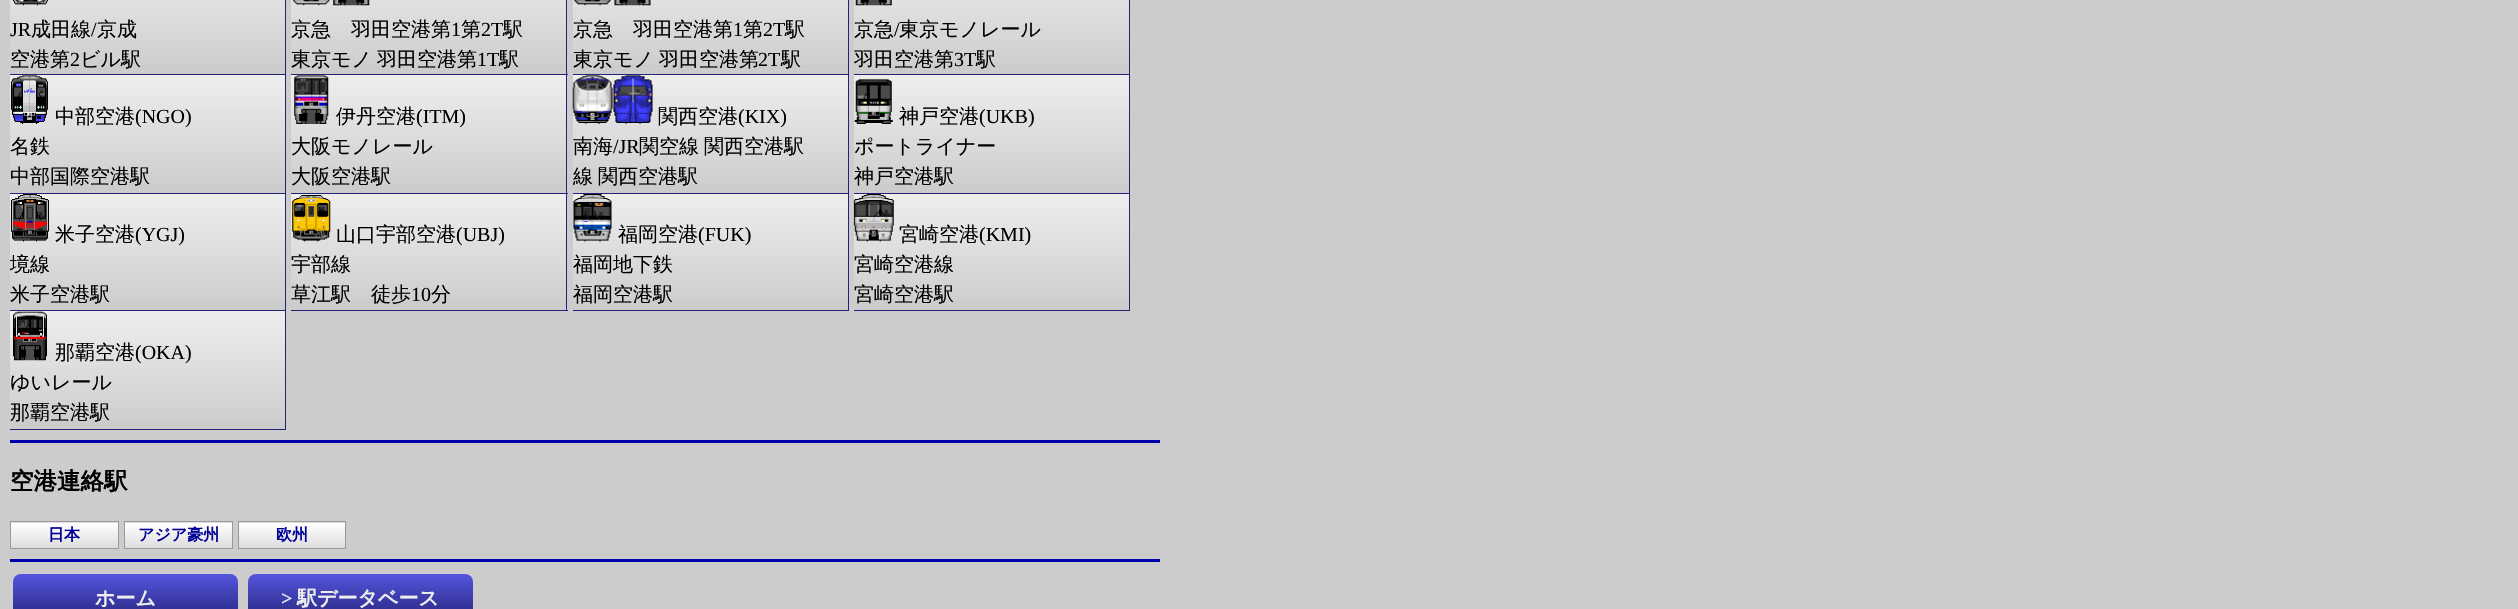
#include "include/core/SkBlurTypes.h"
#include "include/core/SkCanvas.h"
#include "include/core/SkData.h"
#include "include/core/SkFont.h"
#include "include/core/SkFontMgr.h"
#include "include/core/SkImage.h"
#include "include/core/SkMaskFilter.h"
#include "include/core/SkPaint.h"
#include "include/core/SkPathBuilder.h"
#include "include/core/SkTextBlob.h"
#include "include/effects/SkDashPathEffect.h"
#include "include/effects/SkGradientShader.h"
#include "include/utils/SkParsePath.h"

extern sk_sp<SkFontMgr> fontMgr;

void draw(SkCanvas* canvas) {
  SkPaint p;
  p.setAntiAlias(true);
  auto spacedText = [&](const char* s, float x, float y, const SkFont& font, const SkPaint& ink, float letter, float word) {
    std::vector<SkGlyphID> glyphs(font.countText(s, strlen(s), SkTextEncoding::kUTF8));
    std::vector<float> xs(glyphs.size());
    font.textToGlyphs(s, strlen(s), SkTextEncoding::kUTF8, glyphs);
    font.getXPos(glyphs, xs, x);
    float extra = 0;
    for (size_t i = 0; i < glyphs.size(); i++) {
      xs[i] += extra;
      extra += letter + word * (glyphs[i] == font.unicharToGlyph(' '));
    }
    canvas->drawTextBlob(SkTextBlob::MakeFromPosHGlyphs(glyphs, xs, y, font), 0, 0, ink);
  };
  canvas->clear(SkColorSetRGB(204, 204, 204));
  {
    const SkColor colors[] = {SkColorSetRGB(238, 238, 238), SkColorSetRGB(204, 204, 204)};
    const float stops[] = {0, 1};
    const SkPoint ends[] = {{148, -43}, {148, 74}};
    p.setShader(SkGradientShader::MakeLinear(ends, colors, stops, 2, SkTileMode::kClamp));
    p.setAlpha(255);
  }
  canvas->drawRect(SkRect::MakeLTRB(10, 0, 285, 65), p);
  p.setShader(nullptr);
  p.setColor(SkColorSetRGB(34, 34, 119));
  canvas->drawRect(SkRect::MakeLTRB(285, 0, 286, 430), p);
  canvas->drawRect(SkRect::MakeLTRB(10, 74, 286, 75), p);
  canvas->drawImageRect(SkImages::DeferredFromEncodedData(SkData::MakeFromFileName("images/1.png")), SkRect::MakeLTRB(13, 0, 48, 6), SkSamplingOptions());
  {
    const SkColor colors[] = {SkColorSetRGB(238, 238, 238), SkColorSetRGB(204, 204, 204)};
    const float stops[] = {0, 1};
    const SkPoint ends[] = {{429, -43}, {429, 74}};
    p.setShader(SkGradientShader::MakeLinear(ends, colors, stops, 2, SkTileMode::kClamp));
    p.setAlpha(255);
  }
  canvas->drawRect(SkRect::MakeLTRB(291, 0, 566, 65), p);
  p.setShader(nullptr);
  p.setColor(SkColorSetRGB(34, 34, 119));
  canvas->drawRect(SkRect::MakeLTRB(566, 0, 567, 311), p);
  canvas->drawRect(SkRect::MakeLTRB(291, 74, 568, 75), p);
  canvas->drawImageRect(SkImages::DeferredFromEncodedData(SkData::MakeFromFileName("images/2.png")), SkRect::MakeLTRB(293, 0, 330, 6), SkSamplingOptions());
  canvas->drawImageRect(SkImages::DeferredFromEncodedData(SkData::MakeFromFileName("images/3.png")), SkRect::MakeLTRB(333, 0, 370, 6), SkSamplingOptions());
  {
    const SkColor colors[] = {SkColorSetRGB(238, 238, 238), SkColorSetRGB(204, 204, 204)};
    const float stops[] = {0, 1};
    const SkPoint ends[] = {{710, -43}, {710, 74}};
    p.setShader(SkGradientShader::MakeLinear(ends, colors, stops, 2, SkTileMode::kClamp));
    p.setAlpha(255);
  }
  canvas->drawRect(SkRect::MakeLTRB(573, 0, 848, 65), p);
  p.setShader(nullptr);
  p.setColor(SkColorSetRGB(34, 34, 119));
  canvas->drawRect(SkRect::MakeLTRB(848, 0, 849, 311), p);
  canvas->drawRect(SkRect::MakeLTRB(573, 74, 849, 75), p);
  canvas->drawImageRect(SkImages::DeferredFromEncodedData(SkData::MakeFromFileName("images/4.png")), SkRect::MakeLTRB(574, 0, 611, 6), SkSamplingOptions());
  canvas->drawImageRect(SkImages::DeferredFromEncodedData(SkData::MakeFromFileName("images/5.png")), SkRect::MakeLTRB(614, 0, 651, 6), SkSamplingOptions());
  {
    const SkColor colors[] = {SkColorSetRGB(238, 238, 238), SkColorSetRGB(204, 204, 204)};
    const float stops[] = {0, 1};
    const SkPoint ends[] = {{991, -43}, {991, 74}};
    p.setShader(SkGradientShader::MakeLinear(ends, colors, stops, 2, SkTileMode::kClamp));
    p.setAlpha(255);
  }
  canvas->drawRect(SkRect::MakeLTRB(854, 0, 1129, 65), p);
  p.setShader(nullptr);
  p.setColor(SkColorSetRGB(34, 34, 119));
  canvas->drawRect(SkRect::MakeLTRB(1129, 0, 1130, 311), p);
  canvas->drawRect(SkRect::MakeLTRB(854, 74, 1130, 75), p);
  canvas->drawImageRect(SkImages::DeferredFromEncodedData(SkData::MakeFromFileName("images/6.png")), SkRect::MakeLTRB(855, 0, 892, 6), SkSamplingOptions());
  {
    const SkColor colors[] = {SkColorSetRGB(238, 238, 238), SkColorSetRGB(204, 204, 204)};
    const float stops[] = {0, 1};
    const SkPoint ends[] = {{148, 75}, {148, 193}};
    p.setShader(SkGradientShader::MakeLinear(ends, colors, stops, 2, SkTileMode::kClamp));
    p.setAlpha(255);
  }
  canvas->drawRect(SkRect::MakeLTRB(10, 75, 285, 184), p);
  p.setShader(nullptr);
  p.setColor(SkColorSetRGB(34, 34, 119));
  canvas->drawRect(SkRect::MakeLTRB(10, 193, 286, 194), p);
  canvas->drawImageRect(SkImages::DeferredFromEncodedData(SkData::MakeFromFileName("images/7.png")), SkRect::MakeLTRB(11, 75, 48, 124), SkSamplingOptions());
  {
    const SkColor colors[] = {SkColorSetRGB(238, 238, 238), SkColorSetRGB(204, 204, 204)};
    const float stops[] = {0, 1};
    const SkPoint ends[] = {{429, 75}, {429, 193}};
    p.setShader(SkGradientShader::MakeLinear(ends, colors, stops, 2, SkTileMode::kClamp));
    p.setAlpha(255);
  }
  canvas->drawRect(SkRect::MakeLTRB(291, 75, 566, 184), p);
  p.setShader(nullptr);
  p.setColor(SkColorSetRGB(34, 34, 119));
  canvas->drawRect(SkRect::MakeLTRB(291, 193, 568, 194), p);
  canvas->drawImageRect(SkImages::DeferredFromEncodedData(SkData::MakeFromFileName("images/8.png")), SkRect::MakeLTRB(294, 75, 329, 124), SkSamplingOptions());
  {
    const SkColor colors[] = {SkColorSetRGB(238, 238, 238), SkColorSetRGB(204, 204, 204)};
    const float stops[] = {0, 1};
    const SkPoint ends[] = {{710, 75}, {710, 193}};
    p.setShader(SkGradientShader::MakeLinear(ends, colors, stops, 2, SkTileMode::kClamp));
    p.setAlpha(255);
  }
  canvas->drawRect(SkRect::MakeLTRB(573, 75, 848, 184), p);
  p.setShader(nullptr);
  p.setColor(SkColorSetRGB(34, 34, 119));
  canvas->drawRect(SkRect::MakeLTRB(573, 193, 849, 194), p);
  canvas->drawImageRect(SkImages::DeferredFromEncodedData(SkData::MakeFromFileName("images/9.png")), SkRect::MakeLTRB(572, 75, 613, 124), SkSamplingOptions());
  canvas->drawImageRect(SkImages::DeferredFromEncodedData(SkData::MakeFromFileName("images/10.png")), SkRect::MakeLTRB(613, 75, 653, 124), SkSamplingOptions());
  {
    const SkColor colors[] = {SkColorSetRGB(238, 238, 238), SkColorSetRGB(204, 204, 204)};
    const float stops[] = {0, 1};
    const SkPoint ends[] = {{991, 75}, {991, 193}};
    p.setShader(SkGradientShader::MakeLinear(ends, colors, stops, 2, SkTileMode::kClamp));
    p.setAlpha(255);
  }
  canvas->drawRect(SkRect::MakeLTRB(854, 75, 1129, 184), p);
  p.setShader(nullptr);
  p.setColor(SkColorSetRGB(34, 34, 119));
  canvas->drawRect(SkRect::MakeLTRB(854, 193, 1130, 194), p);
  canvas->drawImageRect(SkImages::DeferredFromEncodedData(SkData::MakeFromFileName("images/11.png")), SkRect::MakeLTRB(854, 79, 893, 124), SkSamplingOptions());
  {
    const SkColor colors[] = {SkColorSetRGB(238, 238, 238), SkColorSetRGB(204, 204, 204)};
    const float stops[] = {0, 1};
    const SkPoint ends[] = {{148, 194}, {148, 310}};
    p.setShader(SkGradientShader::MakeLinear(ends, colors, stops, 2, SkTileMode::kClamp));
    p.setAlpha(255);
  }
  canvas->drawRect(SkRect::MakeLTRB(10, 194, 285, 301), p);
  p.setShader(nullptr);
  p.setColor(SkColorSetRGB(34, 34, 119));
  canvas->drawRect(SkRect::MakeLTRB(10, 310, 286, 311), p);
  canvas->drawImageRect(SkImages::DeferredFromEncodedData(SkData::MakeFromFileName("images/12.png")), SkRect::MakeLTRB(11, 194, 49, 242), SkSamplingOptions());
  {
    const SkColor colors[] = {SkColorSetRGB(238, 238, 238), SkColorSetRGB(204, 204, 204)};
    const float stops[] = {0, 1};
    const SkPoint ends[] = {{429, 194}, {429, 310}};
    p.setShader(SkGradientShader::MakeLinear(ends, colors, stops, 2, SkTileMode::kClamp));
    p.setAlpha(255);
  }
  canvas->drawRect(SkRect::MakeLTRB(291, 194, 566, 301), p);
  p.setShader(nullptr);
  p.setColor(SkColorSetRGB(34, 34, 119));
  canvas->drawRect(SkRect::MakeLTRB(291, 310, 568, 311), p);
  canvas->drawImageRect(SkImages::DeferredFromEncodedData(SkData::MakeFromFileName("images/13.png")), SkRect::MakeLTRB(292, 195, 331, 242), SkSamplingOptions());
  {
    const SkColor colors[] = {SkColorSetRGB(238, 238, 238), SkColorSetRGB(204, 204, 204)};
    const float stops[] = {0, 1};
    const SkPoint ends[] = {{710, 194}, {710, 310}};
    p.setShader(SkGradientShader::MakeLinear(ends, colors, stops, 2, SkTileMode::kClamp));
    p.setAlpha(255);
  }
  canvas->drawRect(SkRect::MakeLTRB(573, 194, 848, 301), p);
  p.setShader(nullptr);
  p.setColor(SkColorSetRGB(34, 34, 119));
  canvas->drawRect(SkRect::MakeLTRB(573, 310, 849, 311), p);
  canvas->drawImageRect(SkImages::DeferredFromEncodedData(SkData::MakeFromFileName("images/14.png")), SkRect::MakeLTRB(573, 194, 612, 242), SkSamplingOptions());
  {
    const SkColor colors[] = {SkColorSetRGB(238, 238, 238), SkColorSetRGB(204, 204, 204)};
    const float stops[] = {0, 1};
    const SkPoint ends[] = {{991, 194}, {991, 310}};
    p.setShader(SkGradientShader::MakeLinear(ends, colors, stops, 2, SkTileMode::kClamp));
    p.setAlpha(255);
  }
  canvas->drawRect(SkRect::MakeLTRB(854, 194, 1129, 301), p);
  p.setShader(nullptr);
  p.setColor(SkColorSetRGB(34, 34, 119));
  canvas->drawRect(SkRect::MakeLTRB(854, 310, 1130, 311), p);
  canvas->drawImageRect(SkImages::DeferredFromEncodedData(SkData::MakeFromFileName("images/15.png")), SkRect::MakeLTRB(853, 194, 894, 242), SkSamplingOptions());
  {
    const SkColor colors[] = {SkColorSetRGB(238, 238, 238), SkColorSetRGB(204, 204, 204)};
    const float stops[] = {0, 1};
    const SkPoint ends[] = {{148, 311}, {148, 429}};
    p.setShader(SkGradientShader::MakeLinear(ends, colors, stops, 2, SkTileMode::kClamp));
    p.setAlpha(255);
  }
  canvas->drawRect(SkRect::MakeLTRB(10, 311, 285, 420), p);
  p.setShader(nullptr);
  p.setColor(SkColorSetRGB(34, 34, 119));
  canvas->drawRect(SkRect::MakeLTRB(10, 429, 286, 430), p);
  canvas->drawImageRect(SkImages::DeferredFromEncodedData(SkData::MakeFromFileName("images/16.png")), SkRect::MakeLTRB(13, 311, 47, 361), SkSamplingOptions());
  p.setColor(SkColorSetRGB(0, 0, 170));
  canvas->drawRect(SkRect::MakeLTRB(10, 440, 1160, 443), p);
  {
    const SkColor colors[] = {SK_ColorWHITE, SkColorSetRGB(221, 221, 221)};
    const float stops[] = {0, 1};
    const SkPoint ends[] = {{64, 498}, {64, 523}};
    p.setShader(SkGradientShader::MakeLinear(ends, colors, stops, 2, SkTileMode::kClamp));
    p.setAlpha(255);
  }
  canvas->drawRect(SkRect::MakeLTRB(10, 522, 119, 523), p);
  {
    const SkColor colors[] = {SK_ColorWHITE, SkColorSetRGB(221, 221, 221)};
    const float stops[] = {0, 1};
    const SkPoint ends[] = {{64, 523}, {64, 548}};
    p.setShader(SkGradientShader::MakeLinear(ends, colors, stops, 2, SkTileMode::kClamp));
    p.setAlpha(255);
  }
  canvas->drawRect(SkRect::MakeLTRB(11, 523, 118, 548), p);
  p.setStyle(SkPaint::kStroke_Style);
  p.setStrokeWidth(1);
  p.setShader(nullptr);
  p.setColor(SkColorSetRGB(153, 153, 153));
  canvas->drawRect(SkRect::MakeLTRB(10.5f, 521.5f, 118.5f, 548.5f), p);
  p.setStyle(SkPaint::kFill_Style);
  {
    const SkColor colors[] = {SK_ColorWHITE, SkColorSetRGB(221, 221, 221)};
    const float stops[] = {0, 1};
    const SkPoint ends[] = {{178, 498}, {178, 523}};
    p.setShader(SkGradientShader::MakeLinear(ends, colors, stops, 2, SkTileMode::kClamp));
    p.setAlpha(255);
  }
  canvas->drawRect(SkRect::MakeLTRB(124, 522, 233, 523), p);
  {
    const SkColor colors[] = {SK_ColorWHITE, SkColorSetRGB(221, 221, 221)};
    const float stops[] = {0, 1};
    const SkPoint ends[] = {{178, 523}, {178, 548}};
    p.setShader(SkGradientShader::MakeLinear(ends, colors, stops, 2, SkTileMode::kClamp));
    p.setAlpha(255);
  }
  canvas->drawRect(SkRect::MakeLTRB(125, 523, 232, 548), p);
  p.setStyle(SkPaint::kStroke_Style);
  p.setShader(nullptr);
  p.setColor(SkColorSetRGB(153, 153, 153));
  canvas->drawRect(SkRect::MakeLTRB(124.5f, 521.5f, 232.5f, 548.5f), p);
  p.setStyle(SkPaint::kFill_Style);
  {
    const SkColor colors[] = {SK_ColorWHITE, SkColorSetRGB(221, 221, 221)};
    const float stops[] = {0, 1};
    const SkPoint ends[] = {{292, 498}, {292, 523}};
    p.setShader(SkGradientShader::MakeLinear(ends, colors, stops, 2, SkTileMode::kClamp));
    p.setAlpha(255);
  }
  canvas->drawRect(SkRect::MakeLTRB(238, 522, 346, 523), p);
  {
    const SkColor colors[] = {SK_ColorWHITE, SkColorSetRGB(221, 221, 221)};
    const float stops[] = {0, 1};
    const SkPoint ends[] = {{292, 523}, {292, 548}};
    p.setShader(SkGradientShader::MakeLinear(ends, colors, stops, 2, SkTileMode::kClamp));
    p.setAlpha(255);
  }
  canvas->drawRect(SkRect::MakeLTRB(239, 523, 345, 548), p);
  p.setStyle(SkPaint::kStroke_Style);
  p.setShader(nullptr);
  p.setColor(SkColorSetRGB(153, 153, 153));
  canvas->drawRect(SkRect::MakeLTRB(238.5f, 521.5f, 345.5f, 548.5f), p);
  p.setStyle(SkPaint::kFill_Style);
  p.setColor(SkColorSetRGB(0, 0, 170));
  canvas->drawRect(SkRect::MakeLTRB(10, 559, 1160, 562), p);
  {
    const SkColor colors[] = {SkColorSetRGB(85, 85, 221), SkColorSetRGB(34, 34, 119)};
    const float stops[] = {0, 1};
    const SkPoint ends[] = {{125, 574}, {125, 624}};
    p.setShader(SkGradientShader::MakeLinear(ends, colors, stops, 2, SkTileMode::kClamp));
    p.setAlpha(255);
  }
  canvas->drawRoundRect(SkRect::MakeLTRB(13, 574, 238, 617), 8, 8, p);
  {
    const SkColor colors[] = {SkColorSetRGB(85, 85, 221), SkColorSetRGB(34, 34, 119)};
    const float stops[] = {0, 1};
    const SkPoint ends[] = {{360, 574}, {360, 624}};
    p.setShader(SkGradientShader::MakeLinear(ends, colors, stops, 2, SkTileMode::kClamp));
    p.setAlpha(255);
  }
  canvas->drawRoundRect(SkRect::MakeLTRB(248, 574, 473, 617), 8, 8, p);
  SkFont font1(fontMgr->matchFamilyStyle("Liberation Serif", SkFontStyle::Normal()), 20);
  font1.setSubpixel(true);
  p.setShader(nullptr);
  p.setColor(SK_ColorBLACK);
  canvas->drawString("JR", 10, 36, font1, p);
  SkFont font2(fontMgr->matchFamilyStyle("WenQuanYi Zen Hei", SkFontStyle(500, SkFontStyle::kNormal_Width, SkFontStyle::kUpright_Slant)), 20);
  font2.setSubpixel(true);
  canvas->drawString("成田線", 31, 36, font2, p);
  canvas->drawString("/", 91, 36, font1, p);
  canvas->drawString("京成", 97, 36, font2, p);
  canvas->drawString("空港第", 10, 66, font2, p);
  canvas->drawString("2", 70, 66, font1, p);
  canvas->drawString("ビル駅", 80, 66, font2, p);
  canvas->drawString("京急　羽田空港第", 291, 36, font2, p);
  canvas->drawString("1", 451, 36, font1, p);
  canvas->drawString("第", 461, 36, font2, p);
  canvas->drawString("2T", 481, 36, font1, p);
  canvas->drawString("駅", 503, 36, font2, p);
  spacedText("東京モノ 羽田空港第", 291, 66, font2, p, 0, -1);
  canvas->drawString("1T", 477, 66, font1, p);
  canvas->drawString("駅", 499, 66, font2, p);
  canvas->drawString("京急　羽田空港第", 573, 36, font2, p);
  canvas->drawString("1", 733, 36, font1, p);
  canvas->drawString("第", 743, 36, font2, p);
  canvas->drawString("2T", 763, 36, font1, p);
  canvas->drawString("駅", 785, 36, font2, p);
  spacedText("東京モノ 羽田空港第", 573, 66, font2, p, 0, -1);
  canvas->drawString("2T", 758, 66, font1, p);
  canvas->drawString("駅", 781, 66, font2, p);
  canvas->drawString("京急", 854, 36, font2, p);
  canvas->drawString("/", 894, 36, font1, p);
  canvas->drawString("東京モノレール", 899, 36, font2, p);
  canvas->drawString("羽田空港第", 854, 66, font2, p);
  canvas->drawString("3T", 954, 66, font1, p);
  canvas->drawString("駅", 976, 66, font2, p);
  canvas->drawString("中部空港", 55, 123, font2, p);
  canvas->drawString("(NGO)", 135, 123, font1, p);
  canvas->drawString("名鉄", 10, 153, font2, p);
  canvas->drawString("中部国際空港駅", 10, 183, font2, p);
  canvas->drawString("伊丹空港", 336, 123, font2, p);
  canvas->drawString("(ITM)", 416, 123, font1, p);
  canvas->drawString("大阪モノレール", 291, 153, font2, p);
  canvas->drawString("大阪空港駅", 291, 183, font2, p);
  canvas->drawString("関西空港", 658, 123, font2, p);
  canvas->drawString("(KIX)", 738, 123, font1, p);
  canvas->drawString("南海", 573, 153, font2, p);
  canvas->drawString("/JR", 613, 153, font1, p);
  spacedText("関空線 関西空港駅", 639, 153, font2, p, 0, -1);
  canvas->save();
  canvas->clipRect(SkRect::MakeLTRB(573, 75, 848, 193));
  spacedText("線 関西空港駅", 573, 183, font2, p, 0, -1);
  canvas->restore();
  canvas->drawString("神戸空港", 899, 123, font2, p);
  canvas->drawString("(UKB)", 979, 123, font1, p);
  canvas->drawString("ポートライナー", 854, 153, font2, p);
  canvas->drawString("神戸空港駅", 854, 183, font2, p);
  canvas->drawString("米子空港", 55, 241, font2, p);
  canvas->drawString("(YGJ)", 135, 241, font1, p);
  canvas->drawString("境線", 10, 271, font2, p);
  canvas->drawString("米子空港駅", 10, 301, font2, p);
  canvas->drawString("山口宇部空港", 336, 241, font2, p);
  canvas->drawString("(UBJ)", 456, 241, font1, p);
  canvas->drawString("宇部線", 291, 271, font2, p);
  canvas->drawString("草江駅　徒歩", 291, 301, font2, p);
  canvas->drawString("10", 411, 301, font1, p);
  canvas->drawString("分", 431, 301, font2, p);
  canvas->drawString("福岡空港", 618, 241, font2, p);
  canvas->drawString("(FUK)", 698, 241, font1, p);
  canvas->drawString("福岡地下鉄", 573, 271, font2, p);
  canvas->drawString("福岡空港駅", 573, 301, font2, p);
  canvas->drawString("宮崎空港", 899, 241, font2, p);
  canvas->drawString("(KMI)", 979, 241, font1, p);
  canvas->drawString("宮崎空港線", 854, 271, font2, p);
  canvas->drawString("宮崎空港駅", 854, 301, font2, p);
  canvas->drawString("那覇空港", 55, 359, font2, p);
  canvas->drawString("(OKA)", 135, 359, font1, p);
  canvas->drawString("ゆいレール", 10, 389, font2, p);
  canvas->drawString("那覇空港駅", 10, 419, font2, p);
  SkFont font3(fontMgr->matchFamilyStyle("WenQuanYi Zen Hei", SkFontStyle::Bold()), 23.5f);
  font3.setSubpixel(true);
  canvas->drawString("空港連絡駅", 10, 489, font3, p);
  SkFont font4(fontMgr->matchFamilyStyle("WenQuanYi Zen Hei", SkFontStyle::Bold()), 16);
  font4.setSubpixel(true);
  p.setColor(SkColorSetRGB(0, 0, 153));
  canvas->drawString("日本", 48, 540, font4, p);
  canvas->drawString("アジア豪州", 138, 540, font4, p);
  canvas->drawString("欧州", 276, 540, font4, p);
  SkFont font5(fontMgr->matchFamilyStyle("WenQuanYi Zen Hei", SkFontStyle::Bold()), 20);
  font5.setSubpixel(true);
  p.setColor(SkColorSetRGB(238, 238, 238));
  canvas->drawString("ホーム", 95, 605, font5, p);
  SkFont font6(fontMgr->matchFamilyStyle("Liberation Serif", SkFontStyle::Bold()), 20);
  font6.setSubpixel(true);
  canvas->drawString(">", 281, 605, font6, p);
  canvas->drawString("駅データベース", 297, 605, font5, p);
}
